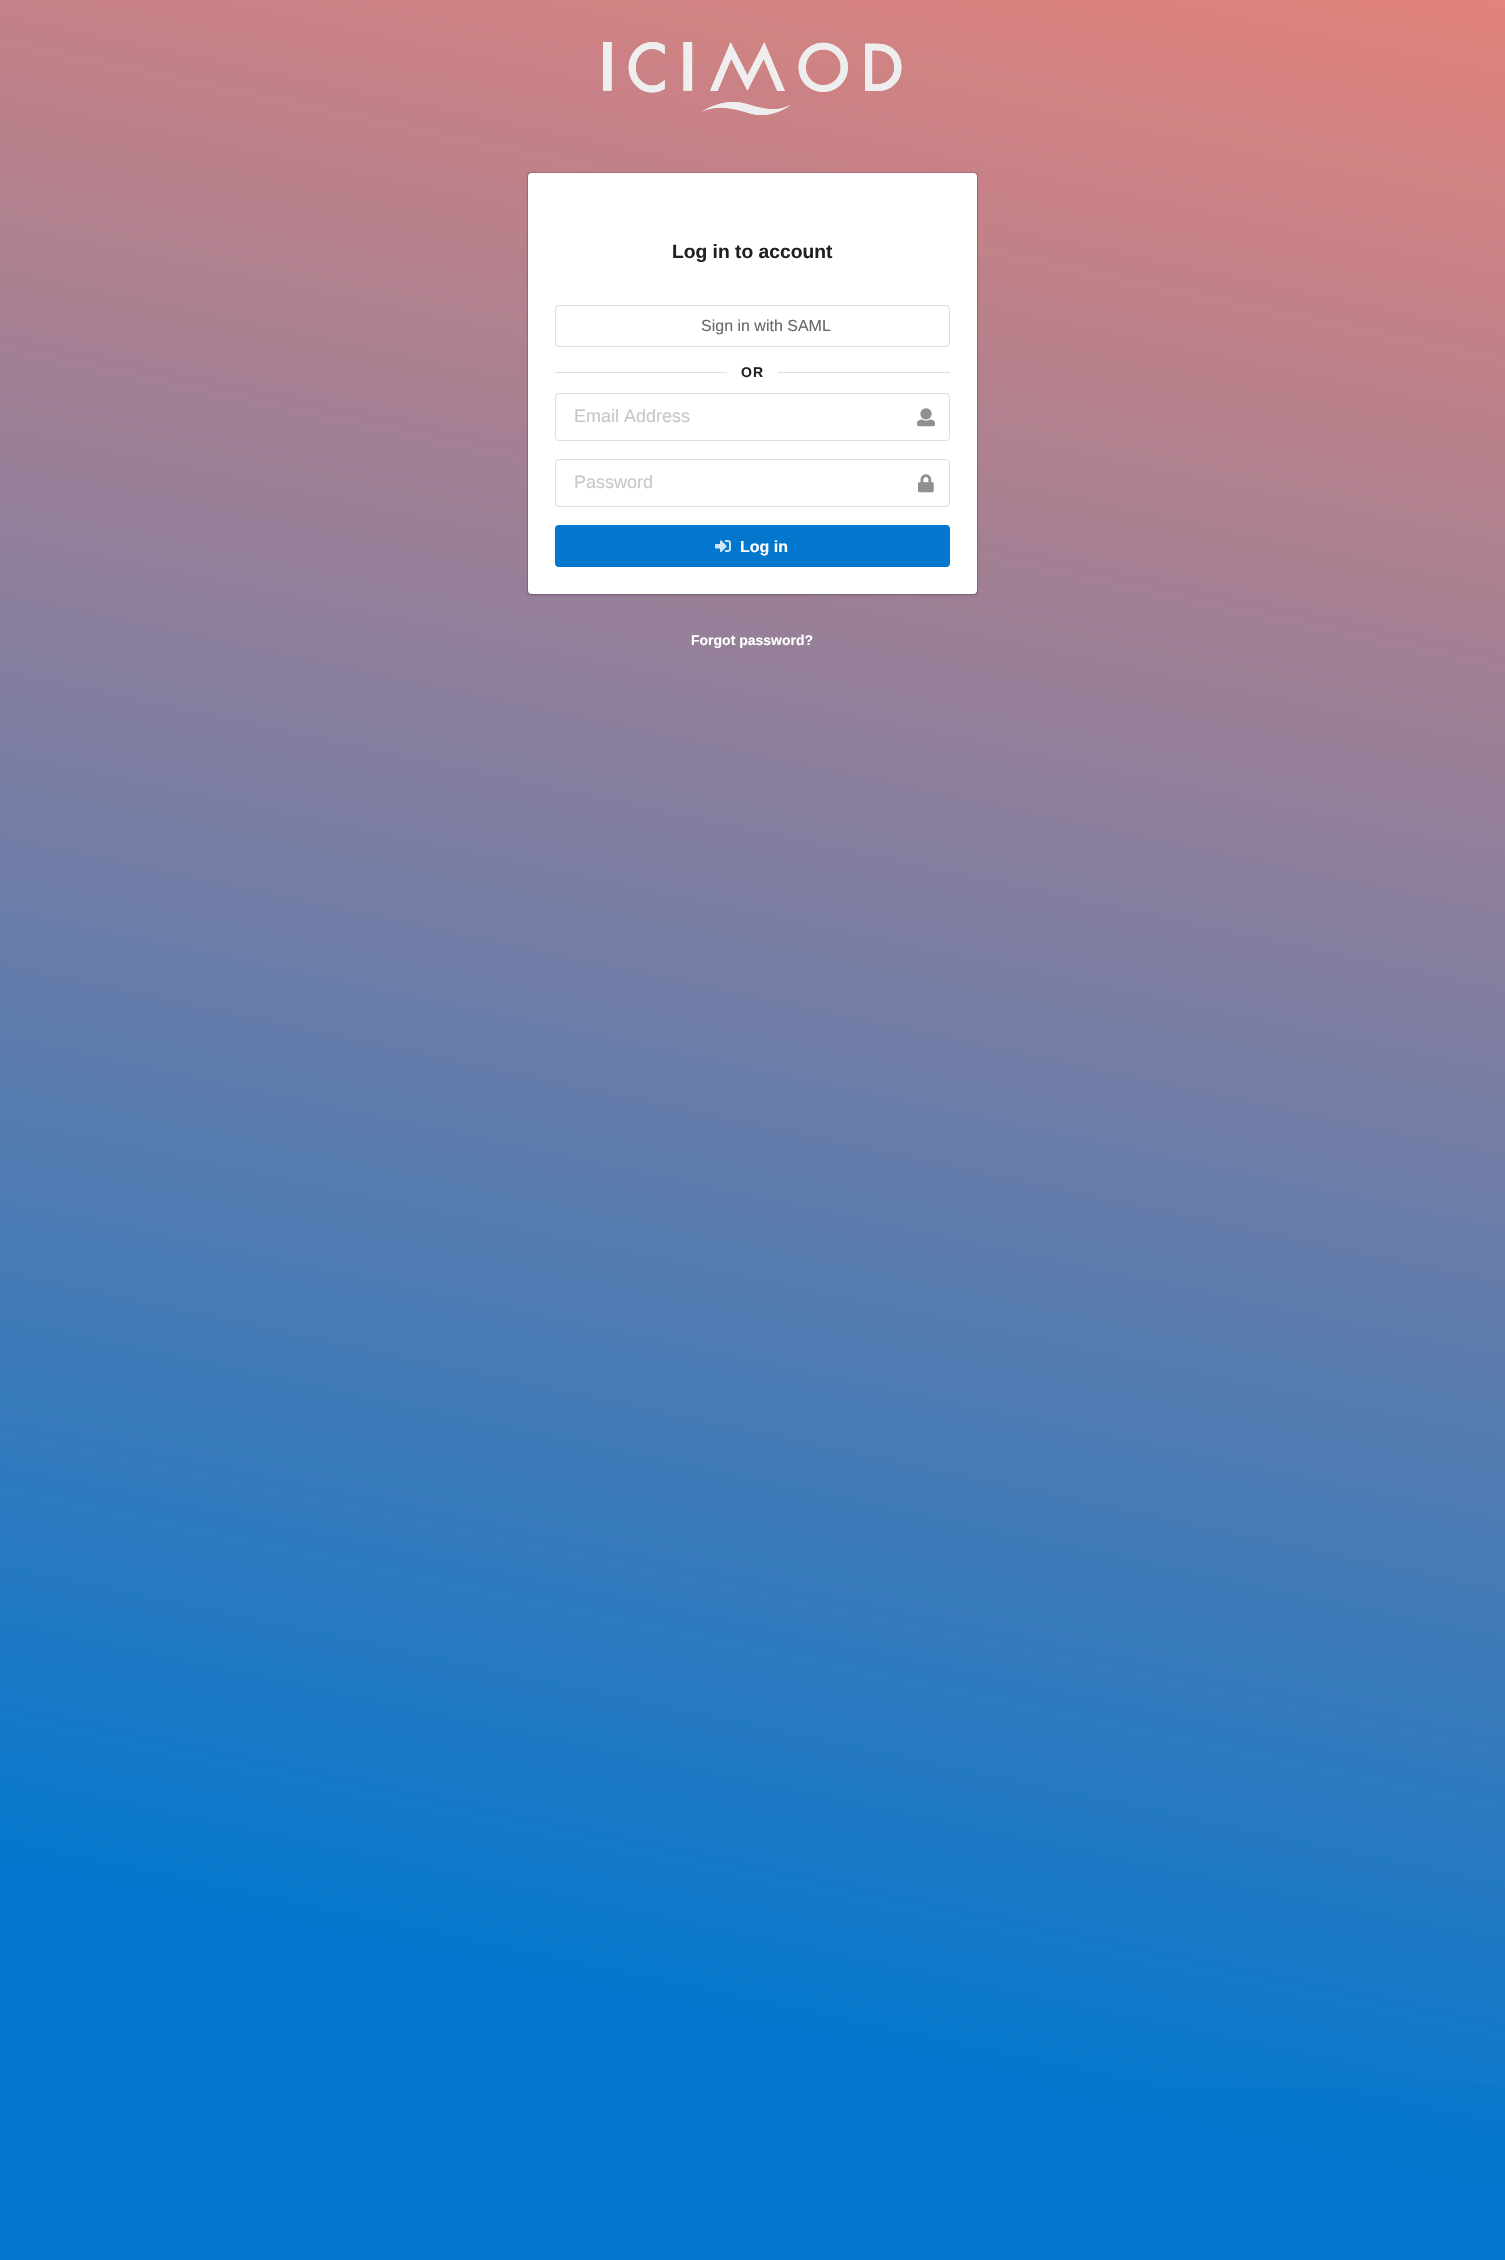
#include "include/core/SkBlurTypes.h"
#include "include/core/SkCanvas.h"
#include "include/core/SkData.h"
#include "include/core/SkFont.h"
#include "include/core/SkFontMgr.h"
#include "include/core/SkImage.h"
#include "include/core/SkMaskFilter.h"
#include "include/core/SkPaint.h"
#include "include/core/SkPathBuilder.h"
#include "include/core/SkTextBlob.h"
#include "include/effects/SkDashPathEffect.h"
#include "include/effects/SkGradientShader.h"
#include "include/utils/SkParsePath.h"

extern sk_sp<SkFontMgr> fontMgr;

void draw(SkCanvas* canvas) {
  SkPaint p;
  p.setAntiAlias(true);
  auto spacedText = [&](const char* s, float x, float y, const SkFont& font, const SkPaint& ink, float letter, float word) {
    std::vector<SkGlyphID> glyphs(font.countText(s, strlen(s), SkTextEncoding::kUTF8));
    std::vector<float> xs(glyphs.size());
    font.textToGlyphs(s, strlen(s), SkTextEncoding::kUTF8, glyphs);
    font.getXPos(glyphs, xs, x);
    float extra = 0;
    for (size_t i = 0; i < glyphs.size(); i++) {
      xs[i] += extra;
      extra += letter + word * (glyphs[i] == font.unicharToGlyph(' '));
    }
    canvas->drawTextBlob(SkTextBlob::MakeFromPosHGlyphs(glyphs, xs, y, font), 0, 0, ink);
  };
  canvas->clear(SK_ColorWHITE);
  {
    const SkColor colors[] = {SkColorSetRGB(3, 119, 205), SkColorSetRGB(3, 119, 205), SkColorSetRGB(174, 128, 141)};
    const float stops[] = {0, 0.15f, 1};
    const SkPoint ends[] = {{490, 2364}, {1015, -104}};
    p.setShader(SkGradientShader::MakeLinear(ends, colors, stops, 3, SkTileMode::kClamp));
    p.setAlpha(255);
  }
  canvas->drawRect(SkRect::MakeLTRB(0, 0, 1505, 2260), p);
  {
    const SkColor colors[] = {SkColorSetRGB(3, 119, 205), SkColorSetRGB(3, 119, 205), SkColorSetARGB(176, 251, 132, 116)};
    const float stops[] = {0, 0.15f, 1};
    const SkPoint ends[] = {{490, 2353}, {1015, -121}};
    p.setShader(SkGradientShader::MakeLinear(ends, colors, stops, 3, SkTileMode::kClamp));
    p.setAlpha(255);
  }
  canvas->drawRect(SkRect::MakeLTRB(0, 0, 1505, 2086), p);
  canvas->drawImageRect(SkImages::DeferredFromEncodedData(SkData::MakeFromFileName("images/1.png")), SkRect::MakeLTRB(603, 42, 902, 115), SkSamplingOptions());
  p.setShader(nullptr);
  p.setColor(SkColorSetARGB(38, 34, 36, 38));
  p.setMaskFilter(SkMaskFilter::MakeBlur(kNormal_SkBlurStyle, 1));
  canvas->drawRoundRect(SkRect::MakeLTRB(527, 173, 978, 596), 4, 4, p);
  p.setMaskFilter(nullptr);
  p.setStyle(SkPaint::kStroke_Style);
  p.setStrokeWidth(1);
  canvas->drawRoundRect(SkRect::MakeLTRB(527.5f, 172.5f, 977.5f, 594.5f), 3.5f, 3.5f, p);
  p.setStyle(SkPaint::kFill_Style);
  p.setColor(SK_ColorWHITE);
  canvas->drawRoundRect(SkRect::MakeLTRB(528, 173, 977, 594), 4, 4, p);
  p.setStyle(SkPaint::kStroke_Style);
  p.setColor(SkColorSetRGB(222, 222, 222));
  canvas->drawRoundRect(SkRect::MakeLTRB(555.5f, 305.5f, 949.5f, 346.5f), 3.5f, 3.5f, p);
  p.setStyle(SkPaint::kFill_Style);
  p.setColor(SkColorSetRGB(221, 222, 222));
  canvas->drawRect(SkRect::MakeLTRB(555, 372, 727, 373), p);
  canvas->drawRect(SkRect::MakeLTRB(778, 372, 950, 373), p);
  p.setStyle(SkPaint::kStroke_Style);
  p.setColor(SkColorSetRGB(222, 222, 222));
  canvas->drawRoundRect(SkRect::MakeLTRB(555.5f, 393.5f, 949.5f, 440.5f), 3.5f, 3.5f, p);
  canvas->drawImageRect(SkImages::DeferredFromEncodedData(SkData::MakeFromFileName("images/2.png")), SkRect::MakeLTRB(917, 408, 935, 427), SkSamplingOptions());
  canvas->drawRoundRect(SkRect::MakeLTRB(555.5f, 459.5f, 949.5f, 506.5f), 3.5f, 3.5f, p);
  canvas->drawImageRect(SkImages::DeferredFromEncodedData(SkData::MakeFromFileName("images/3.png")), SkRect::MakeLTRB(918, 474, 934, 493), SkSamplingOptions());
  p.setStyle(SkPaint::kFill_Style);
  p.setColor(SkColorSetRGB(3, 119, 205));
  canvas->drawRoundRect(SkRect::MakeLTRB(555, 525, 950, 567), 4, 4, p);
  canvas->drawImageRect(SkImages::DeferredFromEncodedData(SkData::MakeFromFileName("images/4.png")), SkRect::MakeLTRB(715, 540, 731, 553), SkSamplingOptions());
  SkFont font1(fontMgr->matchFamilyStyle("Liberation Sans", SkFontStyle::Bold()), 19.25f);
  font1.setSubpixel(true);
  p.setColor(SkColorSetRGB(33, 33, 33));
  canvas->drawString("Log in to account", 672, 258, font1, p);
  SkFont font2(fontMgr->matchFamilyStyle("Liberation Sans", SkFontStyle::Normal()), 16);
  font2.setSubpixel(true);
  p.setColor(SkColorSetRGB(102, 102, 102));
  canvas->drawString("Sign in with SAML", 701, 331, font2, p);
  SkFont font3(fontMgr->matchFamilyStyle("Liberation Sans", SkFontStyle::Bold()), 14);
  font3.setSubpixel(true);
  p.setColor(SkColorSetRGB(33, 33, 33));
  spacedText("OR", 741, 377, font3, p, 1, 0);
  SkFont font4(fontMgr->matchFamilyStyle("Liberation Sans", SkFontStyle::Normal()), 18);
  font4.setSubpixel(true);
  p.setColor(SkColorSetRGB(199, 199, 199));
  canvas->drawString("Email Address", 574, 422, font4, p);
  canvas->drawString("Password", 574, 488, font4, p);
  SkFont font5(fontMgr->matchFamilyStyle("Liberation Sans", SkFontStyle::Bold()), 16);
  font5.setSubpixel(true);
  p.setColor(SK_ColorWHITE);
  canvas->drawString("Log in", 740, 552, font5, p);
  canvas->drawString("Forgot password?", 691, 645, font3, p);
}
